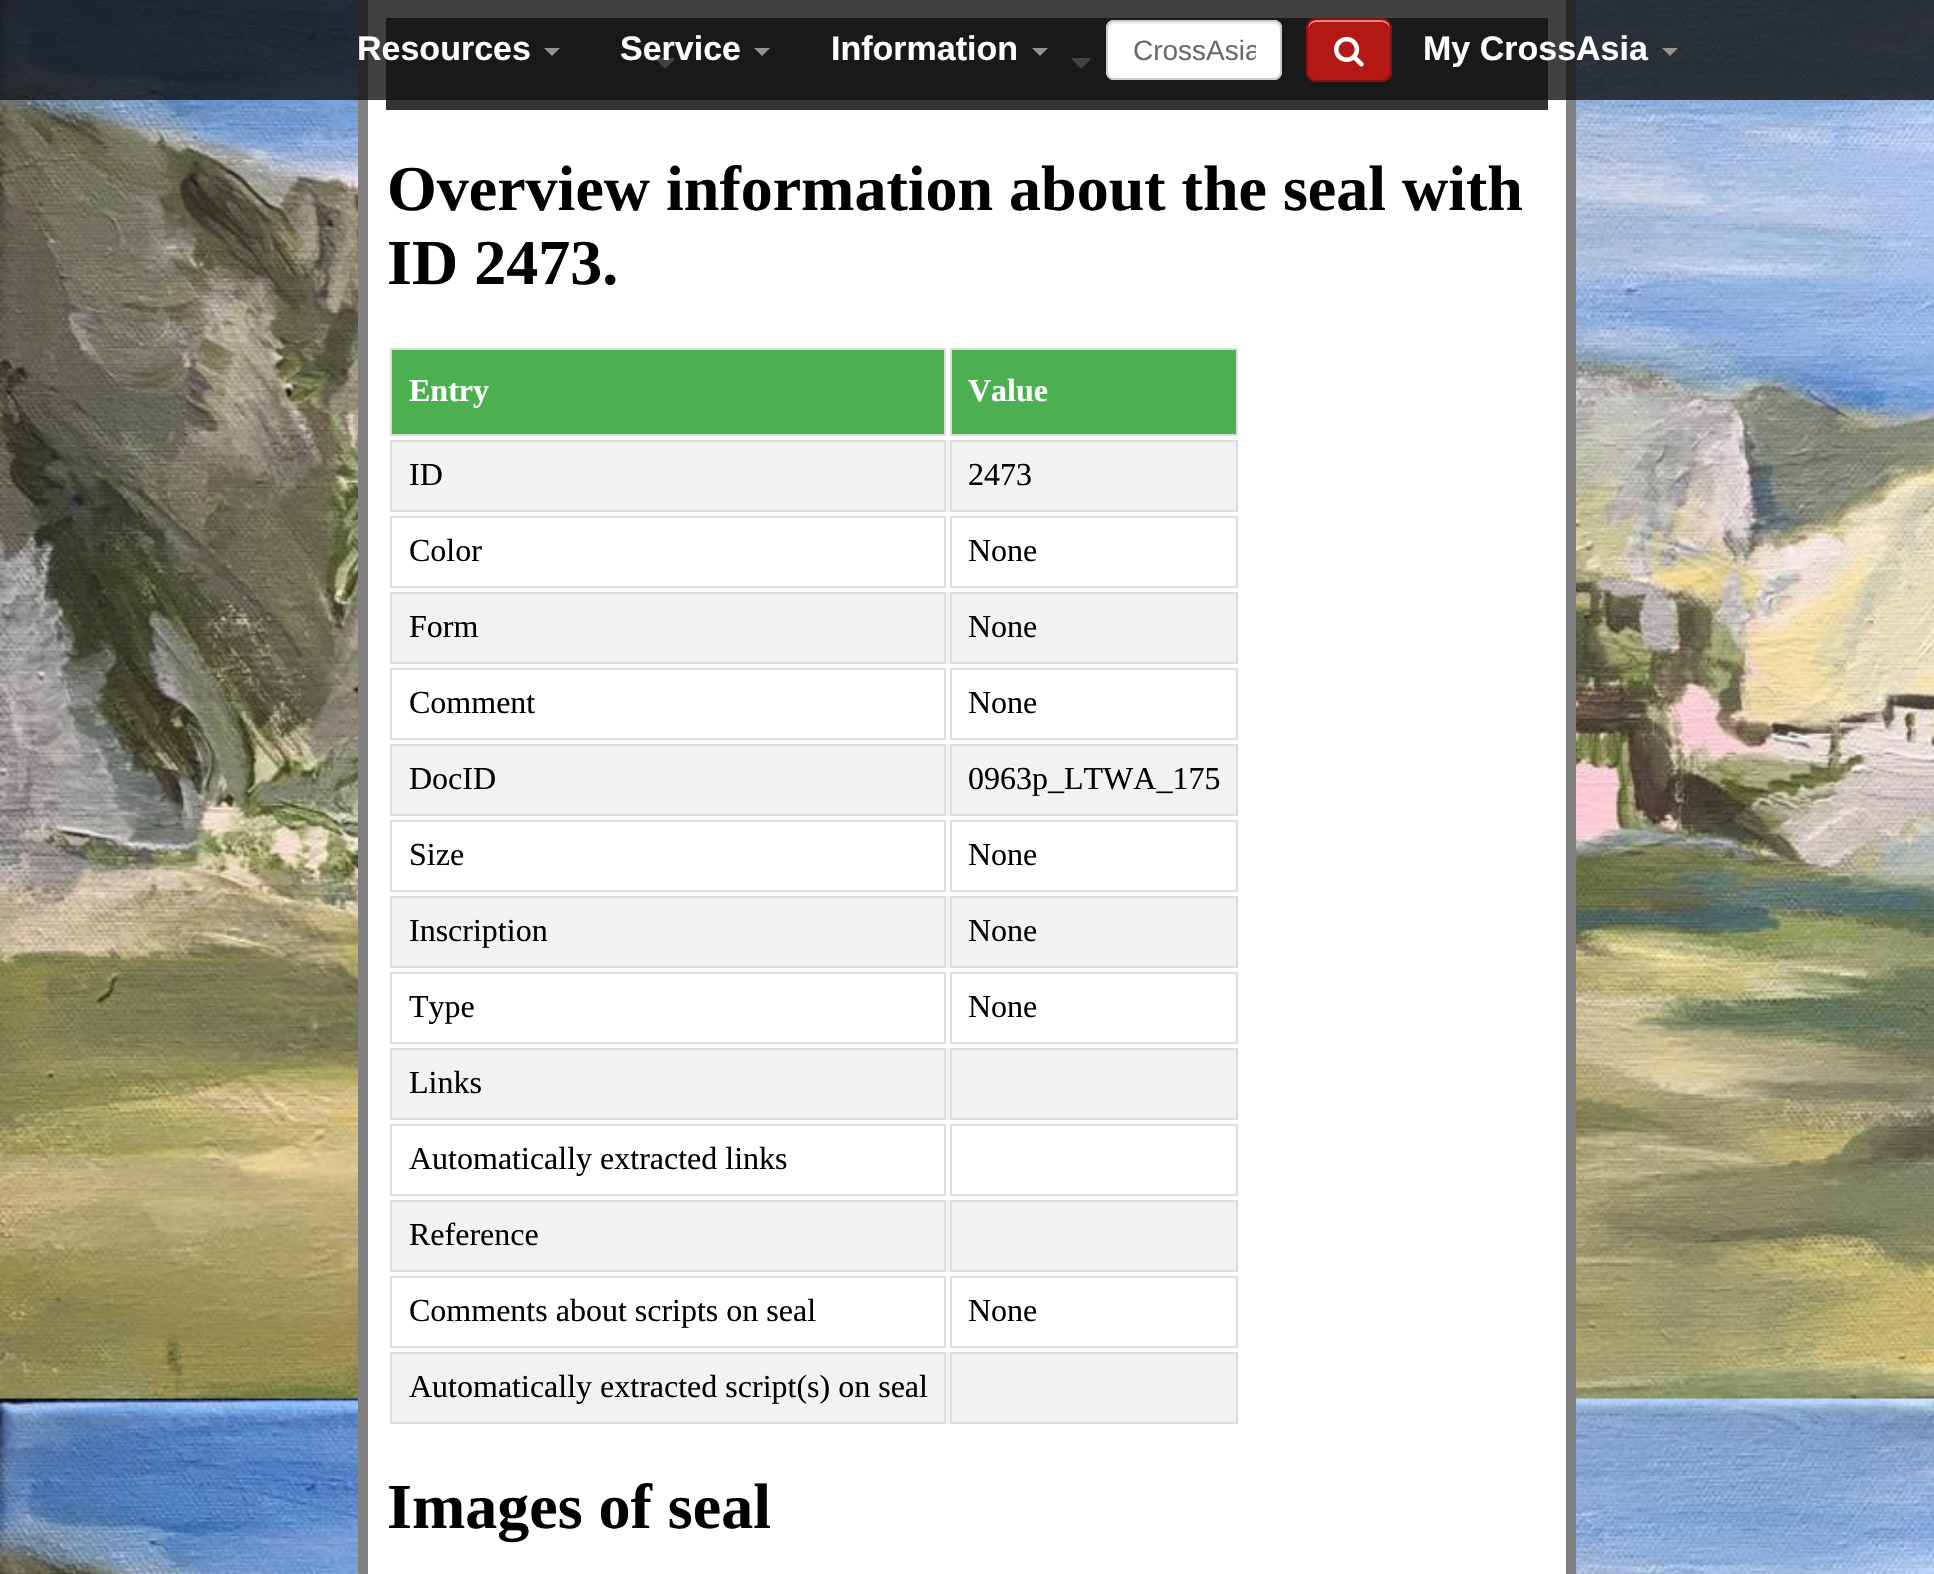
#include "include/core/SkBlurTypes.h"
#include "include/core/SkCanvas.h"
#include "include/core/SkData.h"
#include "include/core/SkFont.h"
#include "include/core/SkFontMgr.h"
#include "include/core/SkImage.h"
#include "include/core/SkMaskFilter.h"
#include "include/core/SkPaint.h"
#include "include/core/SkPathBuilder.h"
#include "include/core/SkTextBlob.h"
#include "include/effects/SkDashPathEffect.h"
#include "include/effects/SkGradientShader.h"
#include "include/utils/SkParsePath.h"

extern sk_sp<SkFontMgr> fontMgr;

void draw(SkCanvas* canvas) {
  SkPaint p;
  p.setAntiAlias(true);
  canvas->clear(SK_ColorWHITE);
  canvas->drawImageRect(SkImages::DeferredFromEncodedData(SkData::MakeFromFileName("images/2.png")), SkRect::MakeLTRB(0, 0, 1934, 1574), SkSamplingOptions());
  p.setColor(SK_ColorWHITE);
  canvas->drawRect(SkRect::MakeLTRB(363, -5, 1571, 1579), p);
  p.setStyle(SkPaint::kStroke_Style);
  p.setStrokeWidth(10);
  p.setColor(SkColorSetRGB(128, 128, 128));
  canvas->drawRect(SkRect::MakeLTRB(363, -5, 1571, 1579), p);
  p.setStyle(SkPaint::kFill_Style);
  p.setColor(SkColorSetRGB(51, 51, 51));
  canvas->drawRect(SkRect::MakeLTRB(386, 18, 1548, 110), p);
  canvas->drawImageRect(SkImages::DeferredFromEncodedData(SkData::MakeFromFileName("images/3.png")), SkRect::MakeLTRB(656, 58, 675, 69), SkSamplingOptions());
  canvas->drawImageRect(SkImages::DeferredFromEncodedData(SkData::MakeFromFileName("images/3.png")), SkRect::MakeLTRB(1072, 58, 1091, 69), SkSamplingOptions());
  p.setColor(SkColorSetARGB(204, 17, 17, 17));
  canvas->drawRect(SkRect::MakeLTRB(0, 0, 1934, 100), p);
  p.setColor(SkColorSetRGB(150, 146, 142));
  canvas->drawPath(SkPathBuilder().moveTo(544, 48).lineTo(560, 48).lineTo(552, 56).close().detach(), p);
  canvas->drawPath(SkPathBuilder().moveTo(754, 48).lineTo(770, 48).lineTo(762, 56).close().detach(), p);
  canvas->drawPath(SkPathBuilder().moveTo(1032, 48).lineTo(1048, 48).lineTo(1040, 56).close().detach(), p);
  p.setColor(SK_ColorWHITE);
  canvas->drawRoundRect(SkRect::MakeLTRB(1106, 20, 1282, 80), 8, 8, p);
  p.setColor(SkColorSetRGB(236, 236, 236));
  canvas->drawPath(SkPathBuilder().moveTo(1114, 24).lineTo(1274, 24).cubicTo(1277, 24, 1280, 27, 1280, 30).lineTo(1280, 28).cubicTo(1280, 25, 1277, 22, 1274, 22).lineTo(1114, 22).cubicTo(1111, 22, 1108, 25, 1108, 28).lineTo(1108, 30).cubicTo(1108, 27, 1111, 24, 1114, 24).close().detach(), p);
  p.setStyle(SkPaint::kStroke_Style);
  p.setStrokeWidth(2);
  p.setColor(SkColorSetRGB(204, 204, 204));
  canvas->drawRoundRect(SkRect::MakeLTRB(1107, 21, 1281, 79), 7, 7, p);
  p.setStyle(SkPaint::kFill_Style);
  p.setColor(SkColorSetRGB(180, 24, 21));
  canvas->drawRoundRect(SkRect::MakeLTRB(1306, 18, 1392, 82), 10, 10, p);
  p.setColor(SkColorSetRGB(218, 140, 138));
  canvas->drawPath(SkPathBuilder().moveTo(1316, 22).lineTo(1382, 22).cubicTo(1386, 22, 1390, 26, 1390, 30).cubicTo(1390, 18, 1381, 20, 1371, 20).lineTo(1327, 20).cubicTo(1317, 20, 1308, 18, 1308, 30).cubicTo(1308, 26, 1312, 22, 1316, 22).close().detach(), p);
  p.setStyle(SkPaint::kStroke_Style);
  p.setColor(SkColorSetRGB(134, 18, 16));
  canvas->drawRoundRect(SkRect::MakeLTRB(1307, 19, 1391, 81), 9, 9, p);
  canvas->drawImageRect(SkImages::DeferredFromEncodedData(SkData::MakeFromFileName("images/1.png")), SkRect::MakeLTRB(1334, 36, 1364, 67), SkSamplingOptions());
  p.setStyle(SkPaint::kFill_Style);
  p.setColor(SkColorSetRGB(150, 146, 142));
  canvas->drawPath(SkPathBuilder().moveTo(1662, 48).lineTo(1678, 48).lineTo(1670, 56).close().detach(), p);
  p.setColor(SkColorSetRGB(76, 175, 80));
  canvas->drawRect(SkRect::MakeLTRB(391, 349, 945, 435), p);
  p.setStyle(SkPaint::kStroke_Style);
  p.setColor(SkColorSetRGB(221, 221, 221));
  canvas->drawRect(SkRect::MakeLTRB(391, 349, 945, 435), p);
  p.setStyle(SkPaint::kFill_Style);
  p.setColor(SkColorSetRGB(76, 175, 80));
  canvas->drawRect(SkRect::MakeLTRB(951, 349, 1237, 435), p);
  p.setStyle(SkPaint::kStroke_Style);
  p.setColor(SkColorSetRGB(221, 221, 221));
  canvas->drawRect(SkRect::MakeLTRB(951, 349, 1237, 435), p);
  p.setStyle(SkPaint::kFill_Style);
  p.setColor(SkColorSetRGB(242, 242, 242));
  canvas->drawRect(SkRect::MakeLTRB(392, 440, 1236, 512), p);
  p.setStyle(SkPaint::kStroke_Style);
  p.setColor(SkColorSetRGB(221, 221, 221));
  canvas->drawRect(SkRect::MakeLTRB(391, 441, 945, 511), p);
  canvas->drawRect(SkRect::MakeLTRB(951, 441, 1237, 511), p);
  canvas->drawRect(SkRect::MakeLTRB(391, 517, 945, 587), p);
  canvas->drawRect(SkRect::MakeLTRB(951, 517, 1237, 587), p);
  p.setStyle(SkPaint::kFill_Style);
  p.setColor(SkColorSetRGB(242, 242, 242));
  canvas->drawRect(SkRect::MakeLTRB(392, 592, 1236, 664), p);
  p.setStyle(SkPaint::kStroke_Style);
  p.setColor(SkColorSetRGB(221, 221, 221));
  canvas->drawRect(SkRect::MakeLTRB(391, 593, 945, 663), p);
  canvas->drawRect(SkRect::MakeLTRB(951, 593, 1237, 663), p);
  canvas->drawRect(SkRect::MakeLTRB(391, 669, 945, 739), p);
  canvas->drawRect(SkRect::MakeLTRB(951, 669, 1237, 739), p);
  p.setStyle(SkPaint::kFill_Style);
  p.setColor(SkColorSetRGB(242, 242, 242));
  canvas->drawRect(SkRect::MakeLTRB(392, 744, 1236, 816), p);
  p.setStyle(SkPaint::kStroke_Style);
  p.setColor(SkColorSetRGB(221, 221, 221));
  canvas->drawRect(SkRect::MakeLTRB(391, 745, 945, 815), p);
  canvas->drawRect(SkRect::MakeLTRB(951, 745, 1237, 815), p);
  canvas->drawRect(SkRect::MakeLTRB(391, 821, 945, 891), p);
  canvas->drawRect(SkRect::MakeLTRB(951, 821, 1237, 891), p);
  p.setStyle(SkPaint::kFill_Style);
  p.setColor(SkColorSetRGB(242, 242, 242));
  canvas->drawRect(SkRect::MakeLTRB(392, 896, 1236, 968), p);
  p.setStyle(SkPaint::kStroke_Style);
  p.setColor(SkColorSetRGB(221, 221, 221));
  canvas->drawRect(SkRect::MakeLTRB(391, 897, 945, 967), p);
  canvas->drawRect(SkRect::MakeLTRB(951, 897, 1237, 967), p);
  canvas->drawRect(SkRect::MakeLTRB(391, 973, 945, 1043), p);
  canvas->drawRect(SkRect::MakeLTRB(951, 973, 1237, 1043), p);
  p.setStyle(SkPaint::kFill_Style);
  p.setColor(SkColorSetRGB(242, 242, 242));
  canvas->drawRect(SkRect::MakeLTRB(392, 1048, 1236, 1120), p);
  p.setStyle(SkPaint::kStroke_Style);
  p.setColor(SkColorSetRGB(221, 221, 221));
  canvas->drawRect(SkRect::MakeLTRB(391, 1049, 945, 1119), p);
  canvas->drawRect(SkRect::MakeLTRB(951, 1049, 1237, 1119), p);
  canvas->drawRect(SkRect::MakeLTRB(391, 1125, 945, 1195), p);
  canvas->drawRect(SkRect::MakeLTRB(951, 1125, 1237, 1195), p);
  p.setStyle(SkPaint::kFill_Style);
  p.setColor(SkColorSetRGB(242, 242, 242));
  canvas->drawRect(SkRect::MakeLTRB(392, 1200, 1236, 1272), p);
  p.setStyle(SkPaint::kStroke_Style);
  p.setColor(SkColorSetRGB(221, 221, 221));
  canvas->drawRect(SkRect::MakeLTRB(391, 1201, 945, 1271), p);
  canvas->drawRect(SkRect::MakeLTRB(951, 1201, 1237, 1271), p);
  canvas->drawRect(SkRect::MakeLTRB(391, 1277, 945, 1347), p);
  canvas->drawRect(SkRect::MakeLTRB(951, 1277, 1237, 1347), p);
  p.setStyle(SkPaint::kFill_Style);
  p.setColor(SkColorSetRGB(242, 242, 242));
  canvas->drawRect(SkRect::MakeLTRB(392, 1352, 1236, 1424), p);
  p.setStyle(SkPaint::kStroke_Style);
  p.setColor(SkColorSetRGB(221, 221, 221));
  canvas->drawRect(SkRect::MakeLTRB(391, 1353, 945, 1423), p);
  canvas->drawRect(SkRect::MakeLTRB(951, 1353, 1237, 1423), p);
  SkFont font1(fontMgr->matchFamilyStyle("Liberation Sans", SkFontStyle::Bold()), 34);
  font1.setSubpixel(true);
  p.setStyle(SkPaint::kFill_Style);
  p.setColor(SK_ColorWHITE);
  canvas->drawString("Resources", 357, 60, font1, p);
  canvas->drawString("Service", 620, 60, font1, p);
  canvas->drawString("Information", 831, 60, font1, p);
  canvas->save();
  canvas->clipRect(SkRect::MakeLTRB(1132, 34, 1256, 66));
  SkFont font2(fontMgr->matchFamilyStyle("Liberation Sans", SkFontStyle::Normal()), 28);
  font2.setSubpixel(true);
  p.setColor(SkColorSetRGB(107, 106, 106));
  canvas->drawString("CrossAsia", 1133, 60, font2, p);
  canvas->restore();
  p.setColor(SK_ColorWHITE);
  canvas->drawString("My CrossAsia", 1423, 60, font1, p);
  SkFont font3(fontMgr->matchFamilyStyle("Liberation Serif", SkFontStyle::Bold()), 64);
  font3.setSubpixel(true);
  p.setColor(SK_ColorBLACK);
  canvas->drawString("Overview information about the seal with", 387, 210, font3, p);
  canvas->drawString("ID 2473.", 387, 284, font3, p);
  SkFont font4(fontMgr->matchFamilyStyle("Liberation Serif", SkFontStyle::Bold()), 32);
  font4.setSubpixel(true);
  p.setColor(SK_ColorWHITE);
  canvas->drawString("Entry", 409, 401, font4, p);
  canvas->drawString("Value", 968, 401, font4, p);
  SkFont font5(fontMgr->matchFamilyStyle("Liberation Serif", SkFontStyle::Normal()), 32);
  font5.setSubpixel(true);
  p.setColor(SK_ColorBLACK);
  canvas->drawString("ID", 409, 485, font5, p);
  canvas->drawString("2473", 968, 485, font5, p);
  canvas->drawString("Color", 409, 561, font5, p);
  canvas->drawString("None", 968, 561, font5, p);
  canvas->drawString("Form", 409, 637, font5, p);
  canvas->drawString("None", 968, 637, font5, p);
  canvas->drawString("Comment", 409, 713, font5, p);
  canvas->drawString("None", 968, 713, font5, p);
  canvas->drawString("DocID", 409, 789, font5, p);
  canvas->drawString("0963p_LTWA_175", 968, 789, font5, p);
  canvas->drawString("Size", 409, 865, font5, p);
  canvas->drawString("None", 968, 865, font5, p);
  canvas->drawString("Inscription", 409, 941, font5, p);
  canvas->drawString("None", 968, 941, font5, p);
  canvas->drawString("Type", 409, 1017, font5, p);
  canvas->drawString("None", 968, 1017, font5, p);
  canvas->drawString("Links", 409, 1093, font5, p);
  canvas->drawString("Automatically extracted links", 409, 1169, font5, p);
  canvas->drawString("Reference", 409, 1245, font5, p);
  canvas->drawString("Comments about scripts on seal", 409, 1321, font5, p);
  canvas->drawString("None", 968, 1321, font5, p);
  canvas->drawString("Automatically extracted script(s) on seal", 409, 1397, font5, p);
  canvas->drawString("Images of seal", 387, 1528, font3, p);
}
